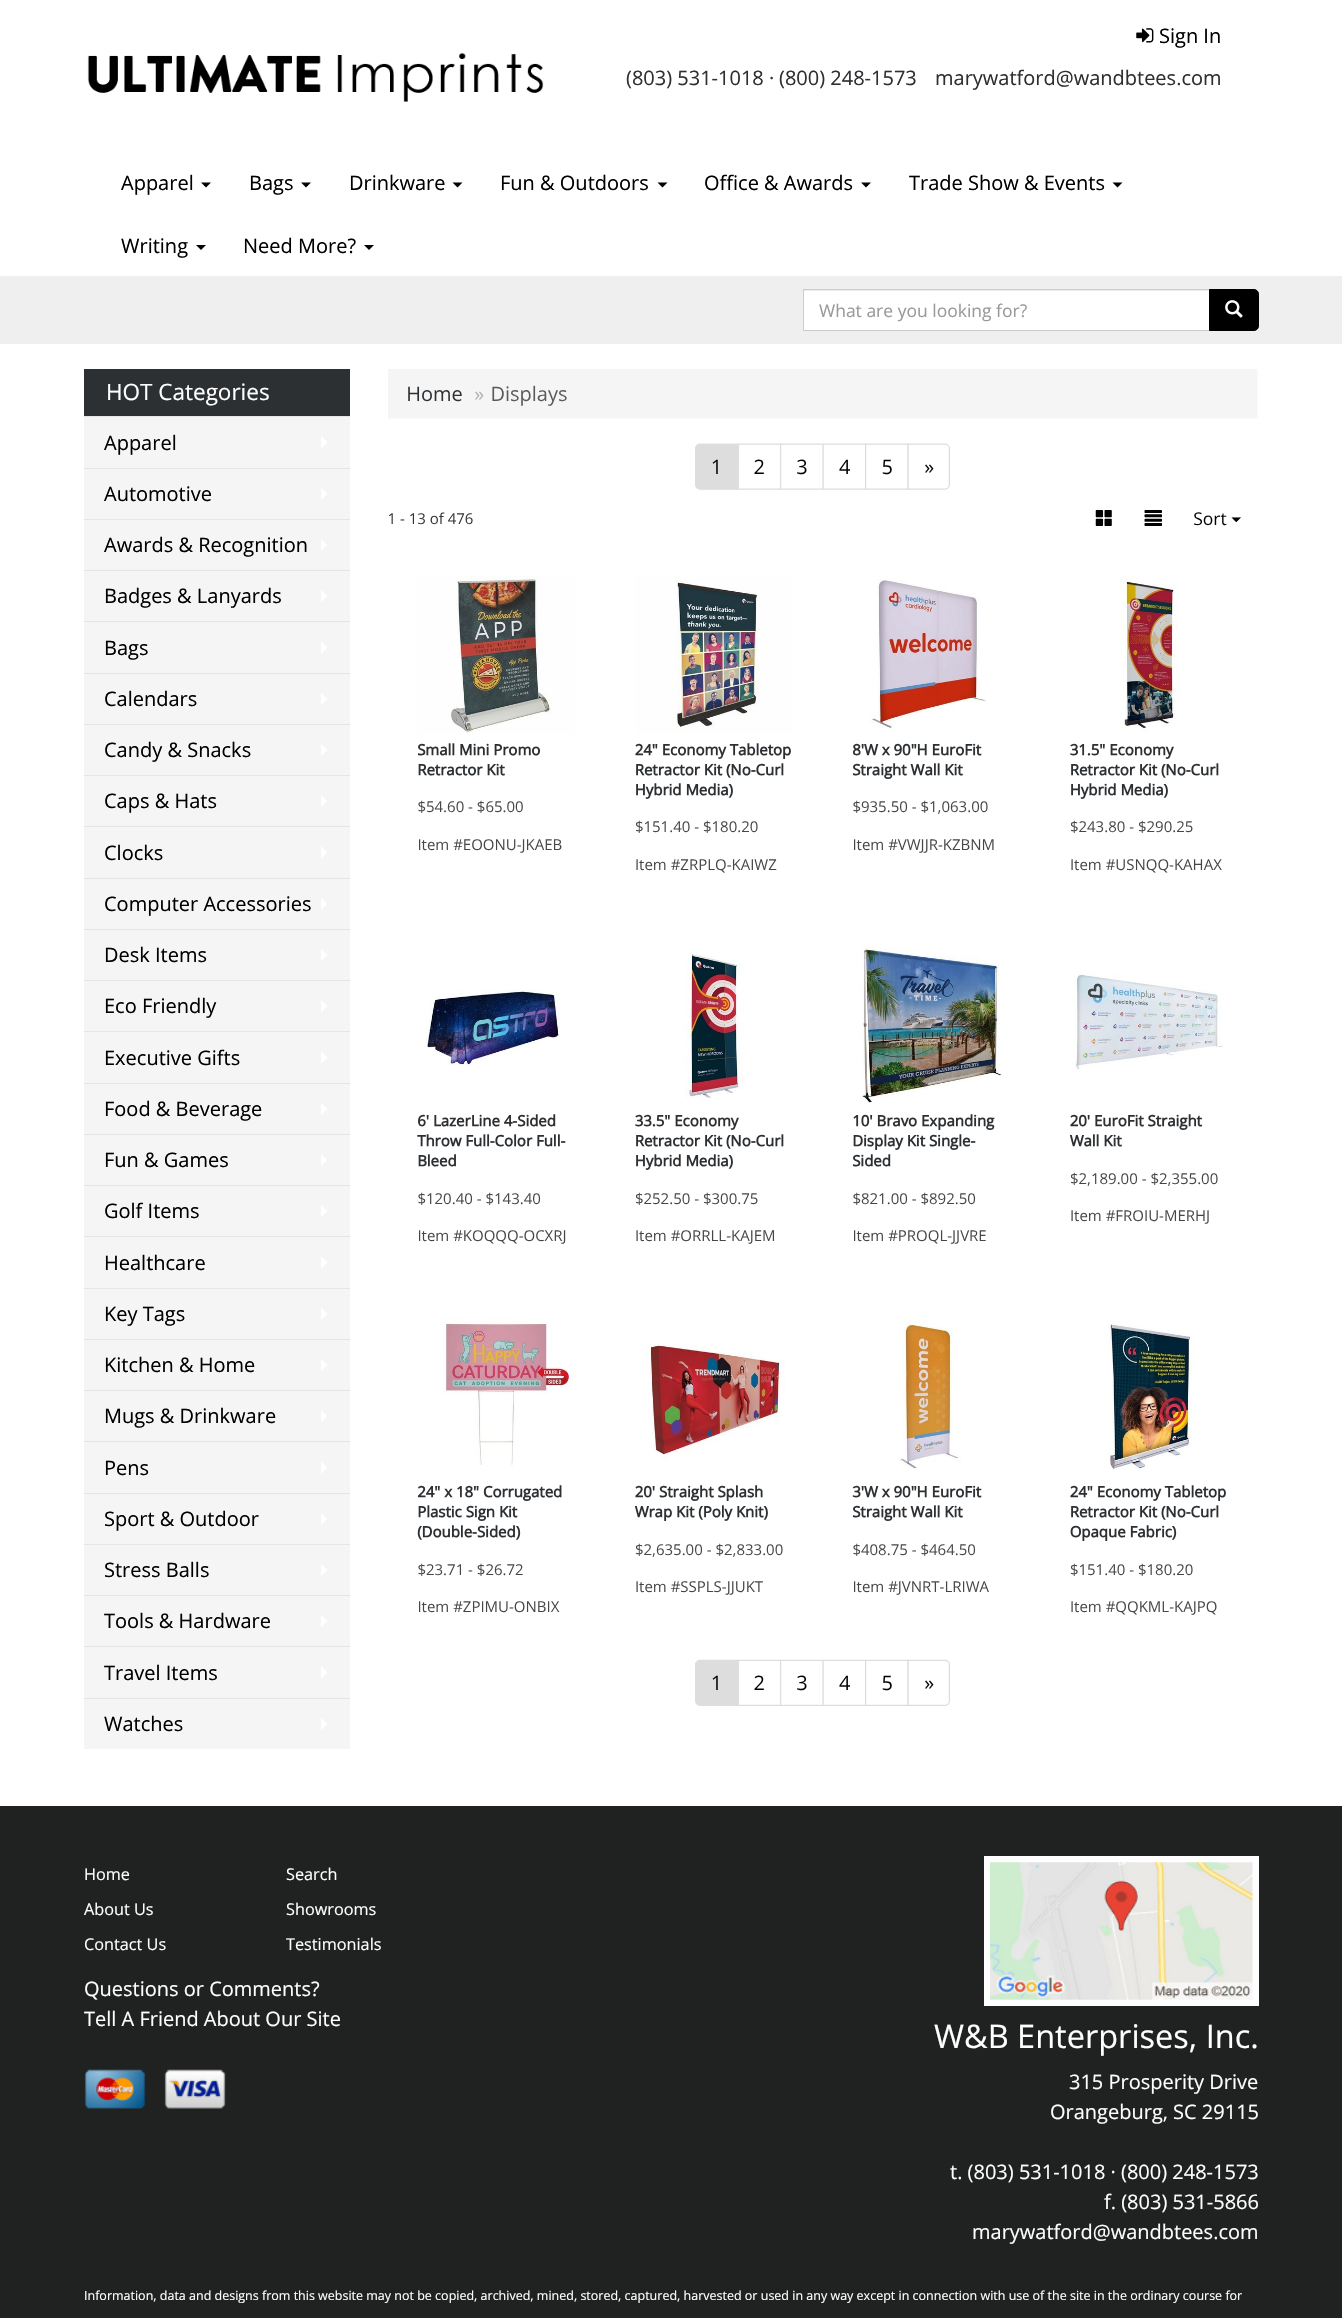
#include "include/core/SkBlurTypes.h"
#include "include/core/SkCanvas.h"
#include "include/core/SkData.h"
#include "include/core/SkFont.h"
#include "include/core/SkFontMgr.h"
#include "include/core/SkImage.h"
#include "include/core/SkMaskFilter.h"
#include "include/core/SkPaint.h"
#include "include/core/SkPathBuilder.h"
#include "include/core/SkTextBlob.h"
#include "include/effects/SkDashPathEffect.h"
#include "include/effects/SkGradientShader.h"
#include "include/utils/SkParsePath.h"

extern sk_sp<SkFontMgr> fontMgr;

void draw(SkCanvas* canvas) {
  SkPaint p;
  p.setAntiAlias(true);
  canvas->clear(SK_ColorWHITE);
  canvas->drawImageRect(SkImages::DeferredFromEncodedData(SkData::MakeFromFileName("images/1.png")), SkRect::MakeLTRB(87, 53, 544, 102), SkSamplingOptions());
  canvas->drawImageRect(SkImages::DeferredFromEncodedData(SkData::MakeFromFileName("images/2.png")), SkRect::MakeLTRB(1136, 28, 1154, 43), SkSamplingOptions());
  p.setColor(SK_ColorBLACK);
  canvas->drawPath(SkPathBuilder().moveTo(201, 182.5f).lineTo(211, 182.5f).lineTo(206, 187.5f).close().detach(), p);
  canvas->drawPath(SkPathBuilder().moveTo(301, 182.5f).lineTo(311, 182.5f).lineTo(306, 187.5f).close().detach(), p);
  canvas->drawPath(SkPathBuilder().moveTo(452.5f, 182.5f).lineTo(462.5f, 182.5f).lineTo(457.5f, 187.5f).close().detach(), p);
  canvas->drawPath(SkPathBuilder().moveTo(657.5f, 182.5f).lineTo(667.5f, 182.5f).lineTo(662.5f, 187.5f).close().detach(), p);
  canvas->drawPath(SkPathBuilder().moveTo(861, 182.5f).lineTo(871, 182.5f).lineTo(866, 187.5f).close().detach(), p);
  canvas->drawPath(SkPathBuilder().moveTo(1112.5f, 182.5f).lineTo(1122.5f, 182.5f).lineTo(1117.5f, 187.5f).close().detach(), p);
  canvas->drawPath(SkPathBuilder().moveTo(196, 245).lineTo(206, 245).lineTo(201, 250).close().detach(), p);
  canvas->drawPath(SkPathBuilder().moveTo(364, 245).lineTo(374, 245).lineTo(369, 250).close().detach(), p);
  p.setColor(SkColorSetRGB(239, 239, 239));
  canvas->drawRect(SkRect::MakeLTRB(0, 276, 1342, 344), p);
  p.setColor(SK_ColorWHITE);
  canvas->drawRect(SkRect::MakeLTRB(804, 291, 1209, 330), p);
  p.setColor(SkColorSetRGB(236, 236, 236));
  canvas->drawRect(SkRect::MakeLTRB(804, 290, 1209, 291), p);
  p.setStyle(SkPaint::kStroke_Style);
  p.setStrokeWidth(1);
  p.setColor(SkColorSetRGB(204, 204, 204));
  canvas->drawRect(SkRect::MakeLTRB(803.5f, 289.5f, 1209.5f, 330.5f), p);
  p.setStyle(SkPaint::kFill_Style);
  p.setColor(SK_ColorBLACK);
  canvas->drawPath(SkPathBuilder().moveTo(1209.5f, 289.5f).lineTo(1254, 289.5f).cubicTo(1256.5f, 289.5f, 1258.5f, 291.5f, 1258.5f, 294).lineTo(1258.5f, 326).cubicTo(1258.5f, 328.5f, 1256.5f, 330.5f, 1254, 330.5f).lineTo(1209.5f, 330.5f).close().detach(), p);
  p.setStyle(SkPaint::kStroke_Style);
  canvas->drawPath(SkPathBuilder().moveTo(1209.5f, 289.5f).lineTo(1254, 289.5f).cubicTo(1256.5f, 289.5f, 1258.5f, 291.5f, 1258.5f, 294).lineTo(1258.5f, 326).cubicTo(1258.5f, 328.5f, 1256.5f, 330.5f, 1254, 330.5f).lineTo(1209.5f, 330.5f).close().detach(), p);
  canvas->drawImageRect(SkImages::DeferredFromEncodedData(SkData::MakeFromFileName("images/3.png")), SkRect::MakeLTRB(1225, 300, 1243, 318), SkSamplingOptions());
  p.setStyle(SkPaint::kFill_Style);
  p.setColor(SkColorSetRGB(45, 48, 51));
  canvas->drawRect(SkRect::MakeLTRB(84, 369, 350, 416), p);
  p.setColor(SkColorSetRGB(245, 245, 245));
  canvas->drawRect(SkRect::MakeLTRB(84, 417, 350, 468), p);
  p.setColor(SkColorSetRGB(229, 229, 229));
  canvas->drawRect(SkRect::MakeLTRB(84, 416, 350, 417), p);
  p.setColor(SK_ColorWHITE);
  canvas->drawPath(SkPathBuilder().moveTo(321, 449).lineTo(321, 436).lineTo(327.5f, 442.5f).close().detach(), p);
  p.setColor(SkColorSetRGB(245, 245, 245));
  canvas->drawRect(SkRect::MakeLTRB(84, 469, 350, 519), p);
  p.setColor(SkColorSetRGB(229, 229, 229));
  canvas->drawRect(SkRect::MakeLTRB(84, 468, 350, 469), p);
  p.setColor(SK_ColorWHITE);
  canvas->drawPath(SkPathBuilder().moveTo(321, 500).lineTo(321, 487.5f).lineTo(327.5f, 494).close().detach(), p);
  p.setColor(SkColorSetRGB(245, 245, 245));
  canvas->drawRect(SkRect::MakeLTRB(84, 520, 350, 570), p);
  p.setColor(SkColorSetRGB(229, 229, 229));
  canvas->drawRect(SkRect::MakeLTRB(84, 519, 350, 520), p);
  p.setColor(SK_ColorWHITE);
  canvas->drawPath(SkPathBuilder().moveTo(321, 551).lineTo(321, 539).lineTo(327.5f, 545).close().detach(), p);
  p.setColor(SkColorSetRGB(245, 245, 245));
  canvas->drawRect(SkRect::MakeLTRB(84, 571, 350, 621), p);
  p.setColor(SkColorSetRGB(229, 229, 229));
  canvas->drawRect(SkRect::MakeLTRB(84, 570, 350, 571), p);
  p.setColor(SK_ColorWHITE);
  canvas->drawPath(SkPathBuilder().moveTo(321, 602.5f).lineTo(321, 590).lineTo(327.5f, 596).close().detach(), p);
  p.setColor(SkColorSetRGB(245, 245, 245));
  canvas->drawRect(SkRect::MakeLTRB(84, 622, 350, 673), p);
  p.setColor(SkColorSetRGB(229, 229, 229));
  canvas->drawRect(SkRect::MakeLTRB(84, 621, 350, 622), p);
  p.setColor(SK_ColorWHITE);
  canvas->drawPath(SkPathBuilder().moveTo(321, 654).lineTo(321, 641).lineTo(327.5f, 647.5f).close().detach(), p);
  p.setColor(SkColorSetRGB(245, 245, 245));
  canvas->drawRect(SkRect::MakeLTRB(84, 674, 350, 724), p);
  p.setColor(SkColorSetRGB(229, 229, 229));
  canvas->drawRect(SkRect::MakeLTRB(84, 673, 350, 674), p);
  p.setColor(SK_ColorWHITE);
  canvas->drawPath(SkPathBuilder().moveTo(321, 705).lineTo(321, 692.5f).lineTo(327.5f, 699).close().detach(), p);
  p.setColor(SkColorSetRGB(245, 245, 245));
  canvas->drawRect(SkRect::MakeLTRB(84, 725, 350, 775), p);
  p.setColor(SkColorSetRGB(229, 229, 229));
  canvas->drawRect(SkRect::MakeLTRB(84, 724, 350, 725), p);
  p.setColor(SK_ColorWHITE);
  canvas->drawPath(SkPathBuilder().moveTo(321, 756).lineTo(321, 744).lineTo(327.5f, 750).close().detach(), p);
  p.setColor(SkColorSetRGB(245, 245, 245));
  canvas->drawRect(SkRect::MakeLTRB(84, 776, 350, 826), p);
  p.setColor(SkColorSetRGB(229, 229, 229));
  canvas->drawRect(SkRect::MakeLTRB(84, 775, 350, 776), p);
  p.setColor(SK_ColorWHITE);
  canvas->drawPath(SkPathBuilder().moveTo(321, 807.5f).lineTo(321, 795).lineTo(327.5f, 801).close().detach(), p);
  p.setColor(SkColorSetRGB(245, 245, 245));
  canvas->drawRect(SkRect::MakeLTRB(84, 827, 350, 878), p);
  p.setColor(SkColorSetRGB(229, 229, 229));
  canvas->drawRect(SkRect::MakeLTRB(84, 826, 350, 827), p);
  p.setColor(SK_ColorWHITE);
  canvas->drawPath(SkPathBuilder().moveTo(321, 859).lineTo(321, 846).lineTo(327.5f, 852.5f).close().detach(), p);
  p.setColor(SkColorSetRGB(245, 245, 245));
  canvas->drawRect(SkRect::MakeLTRB(84, 879, 350, 929), p);
  p.setColor(SkColorSetRGB(229, 229, 229));
  canvas->drawRect(SkRect::MakeLTRB(84, 878, 350, 879), p);
  p.setColor(SK_ColorWHITE);
  canvas->drawPath(SkPathBuilder().moveTo(321, 910).lineTo(321, 897.5f).lineTo(327.5f, 904).close().detach(), p);
  p.setColor(SkColorSetRGB(245, 245, 245));
  canvas->drawRect(SkRect::MakeLTRB(84, 930, 350, 980), p);
  p.setColor(SkColorSetRGB(229, 229, 229));
  canvas->drawRect(SkRect::MakeLTRB(84, 929, 350, 930), p);
  p.setColor(SK_ColorWHITE);
  canvas->drawPath(SkPathBuilder().moveTo(321, 961).lineTo(321, 949).lineTo(327.5f, 955).close().detach(), p);
  p.setColor(SkColorSetRGB(245, 245, 245));
  canvas->drawRect(SkRect::MakeLTRB(84, 981, 350, 1031), p);
  p.setColor(SkColorSetRGB(229, 229, 229));
  canvas->drawRect(SkRect::MakeLTRB(84, 980, 350, 981), p);
  p.setColor(SK_ColorWHITE);
  canvas->drawPath(SkPathBuilder().moveTo(321, 1012.5f).lineTo(321, 1000).lineTo(327.5f, 1006).close().detach(), p);
  p.setColor(SkColorSetRGB(245, 245, 245));
  canvas->drawRect(SkRect::MakeLTRB(84, 1032, 350, 1083), p);
  p.setColor(SkColorSetRGB(229, 229, 229));
  canvas->drawRect(SkRect::MakeLTRB(84, 1031, 350, 1032), p);
  p.setColor(SK_ColorWHITE);
  canvas->drawPath(SkPathBuilder().moveTo(321, 1064).lineTo(321, 1051).lineTo(327.5f, 1057.5f).close().detach(), p);
  p.setColor(SkColorSetRGB(245, 245, 245));
  canvas->drawRect(SkRect::MakeLTRB(84, 1084, 350, 1134), p);
  p.setColor(SkColorSetRGB(229, 229, 229));
  canvas->drawRect(SkRect::MakeLTRB(84, 1083, 350, 1084), p);
  p.setColor(SK_ColorWHITE);
  canvas->drawPath(SkPathBuilder().moveTo(321, 1115).lineTo(321, 1102.5f).lineTo(327.5f, 1109).close().detach(), p);
  p.setColor(SkColorSetRGB(245, 245, 245));
  canvas->drawRect(SkRect::MakeLTRB(84, 1135, 350, 1185), p);
  p.setColor(SkColorSetRGB(229, 229, 229));
  canvas->drawRect(SkRect::MakeLTRB(84, 1134, 350, 1135), p);
  p.setColor(SK_ColorWHITE);
  canvas->drawPath(SkPathBuilder().moveTo(321, 1166).lineTo(321, 1154).lineTo(327.5f, 1160).close().detach(), p);
  p.setColor(SkColorSetRGB(245, 245, 245));
  canvas->drawRect(SkRect::MakeLTRB(84, 1186, 350, 1236), p);
  p.setColor(SkColorSetRGB(229, 229, 229));
  canvas->drawRect(SkRect::MakeLTRB(84, 1185, 350, 1186), p);
  p.setColor(SK_ColorWHITE);
  canvas->drawPath(SkPathBuilder().moveTo(321, 1217.5f).lineTo(321, 1205).lineTo(327.5f, 1211).close().detach(), p);
  p.setColor(SkColorSetRGB(245, 245, 245));
  canvas->drawRect(SkRect::MakeLTRB(84, 1237, 350, 1288), p);
  p.setColor(SkColorSetRGB(229, 229, 229));
  canvas->drawRect(SkRect::MakeLTRB(84, 1236, 350, 1237), p);
  p.setColor(SK_ColorWHITE);
  canvas->drawPath(SkPathBuilder().moveTo(321, 1269).lineTo(321, 1256).lineTo(327.5f, 1262.5f).close().detach(), p);
  p.setColor(SkColorSetRGB(245, 245, 245));
  canvas->drawRect(SkRect::MakeLTRB(84, 1289, 350, 1339), p);
  p.setColor(SkColorSetRGB(229, 229, 229));
  canvas->drawRect(SkRect::MakeLTRB(84, 1288, 350, 1289), p);
  p.setColor(SK_ColorWHITE);
  canvas->drawPath(SkPathBuilder().moveTo(321, 1320).lineTo(321, 1307.5f).lineTo(327.5f, 1314).close().detach(), p);
  p.setColor(SkColorSetRGB(245, 245, 245));
  canvas->drawRect(SkRect::MakeLTRB(84, 1340, 350, 1390), p);
  p.setColor(SkColorSetRGB(229, 229, 229));
  canvas->drawRect(SkRect::MakeLTRB(84, 1339, 350, 1340), p);
  p.setColor(SK_ColorWHITE);
  canvas->drawPath(SkPathBuilder().moveTo(321, 1371).lineTo(321, 1359).lineTo(327.5f, 1365).close().detach(), p);
  p.setColor(SkColorSetRGB(245, 245, 245));
  canvas->drawRect(SkRect::MakeLTRB(84, 1391, 350, 1441), p);
  p.setColor(SkColorSetRGB(229, 229, 229));
  canvas->drawRect(SkRect::MakeLTRB(84, 1390, 350, 1391), p);
  p.setColor(SK_ColorWHITE);
  canvas->drawPath(SkPathBuilder().moveTo(321, 1422.5f).lineTo(321, 1410).lineTo(327.5f, 1416).close().detach(), p);
  p.setColor(SkColorSetRGB(245, 245, 245));
  canvas->drawRect(SkRect::MakeLTRB(84, 1442, 350, 1493), p);
  p.setColor(SkColorSetRGB(229, 229, 229));
  canvas->drawRect(SkRect::MakeLTRB(84, 1441, 350, 1442), p);
  p.setColor(SK_ColorWHITE);
  canvas->drawPath(SkPathBuilder().moveTo(321, 1474).lineTo(321, 1461).lineTo(327.5f, 1467.5f).close().detach(), p);
  p.setColor(SkColorSetRGB(245, 245, 245));
  canvas->drawRect(SkRect::MakeLTRB(84, 1494, 350, 1544), p);
  p.setColor(SkColorSetRGB(229, 229, 229));
  canvas->drawRect(SkRect::MakeLTRB(84, 1493, 350, 1494), p);
  p.setColor(SK_ColorWHITE);
  canvas->drawPath(SkPathBuilder().moveTo(321, 1525).lineTo(321, 1512.5f).lineTo(327.5f, 1519).close().detach(), p);
  p.setColor(SkColorSetRGB(245, 245, 245));
  canvas->drawRect(SkRect::MakeLTRB(84, 1545, 350, 1595), p);
  p.setColor(SkColorSetRGB(229, 229, 229));
  canvas->drawRect(SkRect::MakeLTRB(84, 1544, 350, 1545), p);
  p.setColor(SK_ColorWHITE);
  canvas->drawPath(SkPathBuilder().moveTo(321, 1576).lineTo(321, 1564).lineTo(327.5f, 1570).close().detach(), p);
  p.setColor(SkColorSetRGB(245, 245, 245));
  canvas->drawRect(SkRect::MakeLTRB(84, 1596, 350, 1646), p);
  p.setColor(SkColorSetRGB(229, 229, 229));
  canvas->drawRect(SkRect::MakeLTRB(84, 1595, 350, 1596), p);
  p.setColor(SK_ColorWHITE);
  canvas->drawPath(SkPathBuilder().moveTo(321, 1627.5f).lineTo(321, 1615).lineTo(327.5f, 1621).close().detach(), p);
  p.setColor(SkColorSetRGB(245, 245, 245));
  canvas->drawRect(SkRect::MakeLTRB(84, 1647, 350, 1698), p);
  p.setColor(SkColorSetRGB(229, 229, 229));
  canvas->drawRect(SkRect::MakeLTRB(84, 1646, 350, 1647), p);
  p.setColor(SK_ColorWHITE);
  canvas->drawPath(SkPathBuilder().moveTo(321, 1679).lineTo(321, 1666).lineTo(327.5f, 1672.5f).close().detach(), p);
  p.setColor(SkColorSetRGB(245, 245, 245));
  canvas->drawRect(SkRect::MakeLTRB(84, 1699, 350, 1749), p);
  p.setColor(SkColorSetRGB(229, 229, 229));
  canvas->drawRect(SkRect::MakeLTRB(84, 1698, 350, 1699), p);
  p.setColor(SK_ColorWHITE);
  canvas->drawPath(SkPathBuilder().moveTo(321, 1730).lineTo(321, 1717.5f).lineTo(327.5f, 1724).close().detach(), p);
  canvas->drawImageRect(SkImages::DeferredFromEncodedData(SkData::MakeFromFileName("images/4.png")), SkRect::MakeLTRB(388, 369, 1258, 1706), SkSamplingOptions());
  p.setColor(SkColorSetRGB(32, 33, 33));
  canvas->drawRect(SkRect::MakeLTRB(0, 1806, 1342, 2318), p);
  canvas->drawImageRect(SkImages::DeferredFromEncodedData(SkData::MakeFromFileName("images/5.png")), SkRect::MakeLTRB(84, 2069, 146, 2109), SkSamplingOptions());
  canvas->drawImageRect(SkImages::DeferredFromEncodedData(SkData::MakeFromFileName("images/6.png")), SkRect::MakeLTRB(164, 2069, 226, 2109), SkSamplingOptions());
  p.setColor(SK_ColorWHITE);
  canvas->drawRect(SkRect::MakeLTRB(984, 1856, 1259, 2006), p);
  canvas->drawImageRect(SkImages::DeferredFromEncodedData(SkData::MakeFromFileName("images/7.png")), SkRect::MakeLTRB(990, 1862, 1253, 2000), SkSamplingOptions());
  SkFont font1(fontMgr->matchFamilyStyle("Open Sans", SkFontStyle::Normal()), 20);
  font1.setSubpixel(true);
  p.setColor(SK_ColorBLACK);
  canvas->drawString("Sign In", 1159, 43, font1, p);
  p.setColor(SkColorSetRGB(45, 48, 51));
  canvas->drawString("(803) 531-1018", 626, 85, font1, p);
  p.setColor(SkColorSetRGB(51, 51, 51));
  canvas->drawString("·", 769, 85, font1, p);
  p.setColor(SkColorSetRGB(45, 48, 51));
  canvas->drawString("(800) 248-1573", 779, 85, font1, p);
  canvas->drawString("marywatford@wandbtees.com", 935, 85, font1, p);
  p.setColor(SK_ColorBLACK);
  canvas->drawString("Apparel", 121, 190, font1, p);
  canvas->drawString("Bags", 249, 190, font1, p);
  canvas->drawString("Drinkware", 349, 190, font1, p);
  canvas->drawString("Fun & Outdoors", 500, 190, font1, p);
  canvas->drawString("Office & Awards", 704, 190, font1, p);
  canvas->drawString("Trade Show & Events", 909, 190, font1, p);
  canvas->drawString("Writing", 121, 253, font1, p);
  canvas->drawString("Need More?", 243, 253, font1, p);
  SkFont font2(fontMgr->matchFamilyStyle("Open Sans", SkFontStyle::Normal()), 17.5f);
  font2.setSubpixel(true);
  p.setColor(SkColorSetRGB(153, 153, 153));
  canvas->drawString("What are you looking for?", 819, 317, font2, p);
  SkFont font3(fontMgr->matchFamilyStyle("Open Sans", SkFontStyle::Normal()), 22.5f);
  font3.setSubpixel(true);
  p.setColor(SK_ColorWHITE);
  canvas->drawString("HOT Categories", 106, 400, font3, p);
  p.setColor(SK_ColorBLACK);
  canvas->drawString("Apparel", 104, 450, font1, p);
  canvas->drawString("Automotive", 104, 501, font1, p);
  canvas->drawString("Awards & Recognition", 104, 552, font1, p);
  canvas->drawString("Badges & Lanyards", 104, 603, font1, p);
  canvas->drawString("Bags", 104, 655, font1, p);
  canvas->drawString("Calendars", 104, 706, font1, p);
  canvas->drawString("Candy & Snacks", 104, 757, font1, p);
  canvas->drawString("Caps & Hats", 104, 808, font1, p);
  canvas->drawString("Clocks", 104, 860, font1, p);
  canvas->drawString("Computer Accessories", 104, 911, font1, p);
  canvas->drawString("Desk Items", 104, 962, font1, p);
  canvas->drawString("Eco Friendly", 104, 1013, font1, p);
  canvas->drawString("Executive Gifts", 104, 1065, font1, p);
  canvas->drawString("Food & Beverage", 104, 1116, font1, p);
  canvas->drawString("Fun & Games", 104, 1167, font1, p);
  canvas->drawString("Golf Items", 104, 1218, font1, p);
  canvas->drawString("Healthcare", 104, 1270, font1, p);
  canvas->drawString("Key Tags", 104, 1321, font1, p);
  canvas->drawString("Kitchen & Home", 104, 1372, font1, p);
  canvas->drawString("Mugs & Drinkware", 104, 1423, font1, p);
  canvas->drawString("Pens", 104, 1475, font1, p);
  canvas->drawString("Sport & Outdoor", 104, 1526, font1, p);
  canvas->drawString("Stress Balls", 104, 1577, font1, p);
  canvas->drawString("Tools & Hardware", 104, 1628, font1, p);
  canvas->drawString("Travel Items", 104, 1680, font1, p);
  canvas->drawString("Watches", 104, 1731, font1, p);
  SkFont font4(fontMgr->matchFamilyStyle("Open Sans", SkFontStyle::Normal()), 16.25f);
  font4.setSubpixel(true);
  p.setColor(SK_ColorWHITE);
  canvas->drawString("Home", 84, 1880, font4, p);
  canvas->drawString("About Us", 84, 1915, font4, p);
  canvas->drawString("Contact Us", 84, 1950, font4, p);
  canvas->drawString("Search", 286, 1880, font4, p);
  canvas->drawString("Showrooms", 286, 1915, font4, p);
  canvas->drawString("Testimonials", 286, 1950, font4, p);
  canvas->drawString("Questions or Comments?", 84, 1996, font1, p);
  canvas->drawString("Tell A Friend About Our Site", 84, 2026, font1, p);
  SkFont font5(fontMgr->matchFamilyStyle("Open Sans", SkFontStyle::Normal()), 32.5f);
  font5.setSubpixel(true);
  canvas->drawString("W&B Enterprises, Inc.", 934, 2048, font5, p);
  canvas->drawString("315 Prosperity Drive", 1069, 2089, font1, p);
  canvas->drawString("Orangeburg, SC 29115", 1050, 2119, font1, p);
  canvas->drawString("t. (803) 531-1018 · (800) 248-1573", 950, 2179, font1, p);
  canvas->drawString("f. (803) 531-5866", 1104, 2209, font1, p);
  canvas->drawString("marywatford@wandbtees.com", 972, 2239, font1, p);
  SkFont font6(fontMgr->matchFamilyStyle("Open Sans", SkFontStyle::Normal()), 12.5f);
  font6.setSubpixel(true);
  canvas->drawString("Information, data and designs from this website may not be copied, archived, mined, stored, captured, harvested or used in any way except in connection with use of the site in the ordinary course for", 84, 2300, font6, p);
}
